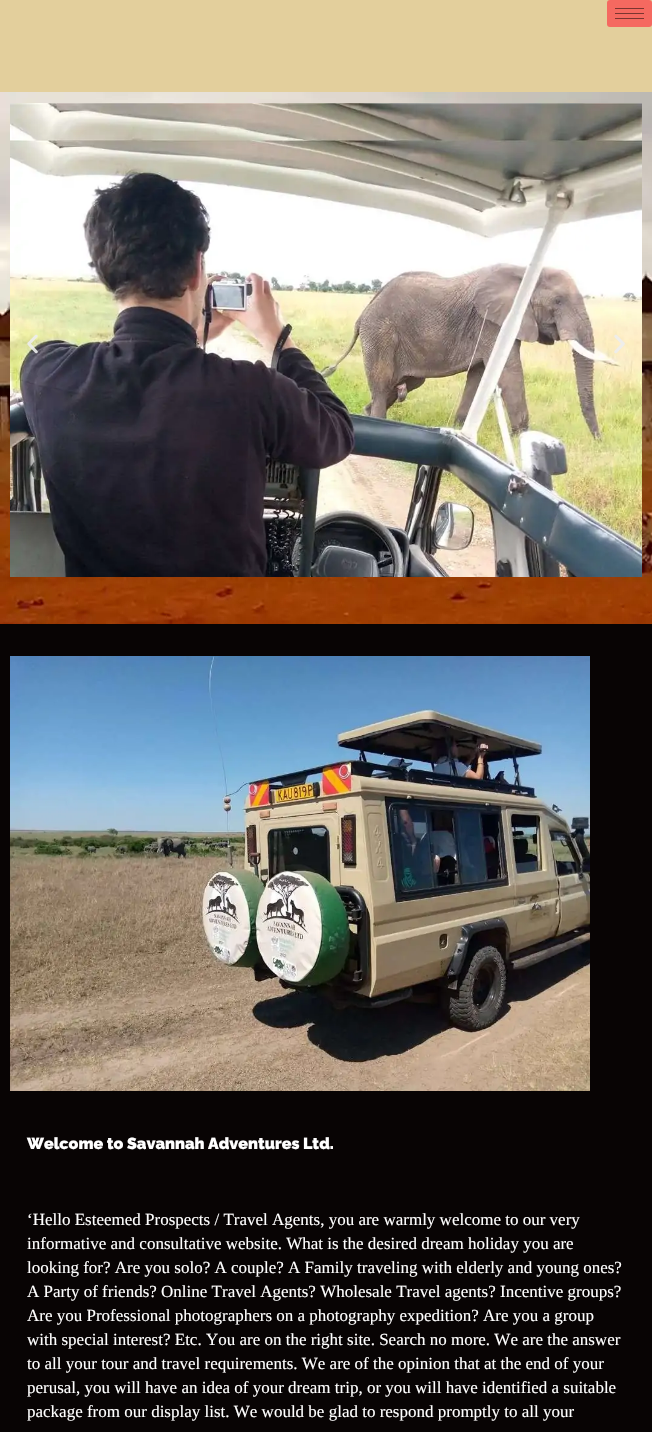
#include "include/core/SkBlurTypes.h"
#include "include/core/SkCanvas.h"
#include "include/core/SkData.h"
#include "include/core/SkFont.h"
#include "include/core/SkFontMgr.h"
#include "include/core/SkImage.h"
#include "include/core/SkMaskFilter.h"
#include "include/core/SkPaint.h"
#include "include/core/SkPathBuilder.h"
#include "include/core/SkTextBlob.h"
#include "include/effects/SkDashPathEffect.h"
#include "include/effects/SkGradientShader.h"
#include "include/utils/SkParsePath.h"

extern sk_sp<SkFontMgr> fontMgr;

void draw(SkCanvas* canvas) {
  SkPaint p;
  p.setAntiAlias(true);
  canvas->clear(SkColorSetRGB(227, 207, 156));
  p.setColor(SkColorSetRGB(245, 105, 96));
  canvas->drawRoundRect(SkRect::MakeLTRB(607, 0, 652, 27), 3, 3, p);
  p.setColor(SkColorSetRGB(123, 53, 48));
  canvas->drawRect(SkRect::MakeLTRB(615, 8, 644, 9), p);
  canvas->drawRect(SkRect::MakeLTRB(615, 13, 644, 14), p);
  canvas->drawRect(SkRect::MakeLTRB(615, 18, 644, 19), p);
  canvas->drawImageRect(SkImages::DeferredFromEncodedData(SkData::MakeFromFileName("images/1.png")), SkRect::MakeLTRB(0, 92, 652, 624), SkSamplingOptions());
  canvas->drawImageRect(SkImages::DeferredFromEncodedData(SkData::MakeFromFileName("images/2.png")), SkRect::MakeLTRB(10, 103, 642, 577), SkSamplingOptions());
  canvas->drawImageRect(SkImages::DeferredFromEncodedData(SkData::MakeFromFileName("images/3.png")), SkRect::MakeLTRB(27, 334, 38, 354), SkSamplingOptions());
  canvas->drawImageRect(SkImages::DeferredFromEncodedData(SkData::MakeFromFileName("images/4.png")), SkRect::MakeLTRB(614, 334, 625, 354), SkSamplingOptions());
  p.setColor(SkColorSetRGB(8, 4, 4));
  canvas->drawRect(SkRect::MakeLTRB(0, 624, 652, 1432), p);
  canvas->drawImageRect(SkImages::DeferredFromEncodedData(SkData::MakeFromFileName("images/5.png")), SkRect::MakeLTRB(10, 656, 590, 1091), SkSamplingOptions());
  SkFont font1(fontMgr->matchFamilyStyle("Raleway", SkFontStyle(900, SkFontStyle::kNormal_Width, SkFontStyle::kUpright_Slant)), 16);
  font1.setSubpixel(true);
  p.setColor(SK_ColorWHITE);
  canvas->drawString("Welcome to Savannah Adventures Ltd.", 27, 1149, font1, p);
  SkFont font2(fontMgr->matchFamilyStyle("Liberation Serif", SkFontStyle::Normal()), 17);
  font2.setSubpixel(true);
  canvas->drawString("‘Hello Esteemed Prospects / Travel Agents, you are warmly welcome to our very", 27, 1225, font2, p);
  canvas->drawString("informative and consultative website. What is the desired dream holiday you are", 27, 1249, font2, p);
  canvas->drawString("looking for? Are you solo? A couple? A Family traveling with elderly and young ones?", 27, 1273, font2, p);
  canvas->drawString("A Party of friends? Online Travel Agents? Wholesale Travel agents? Incentive groups?", 27, 1297, font2, p);
  canvas->drawString("Are you Professional photographers on a photography expedition? Are you a group", 27, 1321, font2, p);
  canvas->drawString("with special interest? Etc. You are on the right site. Search no more. We are the answer", 27, 1345, font2, p);
  canvas->drawString("to all your tour and travel requirements. We are of the opinion that at the end of your", 27, 1369, font2, p);
  canvas->drawString("perusal, you will have an idea of your dream trip, or you will have identified a suitable", 27, 1393, font2, p);
  canvas->drawString("package from our display list. We would be glad to respond promptly to all your", 27, 1417, font2, p);
}
